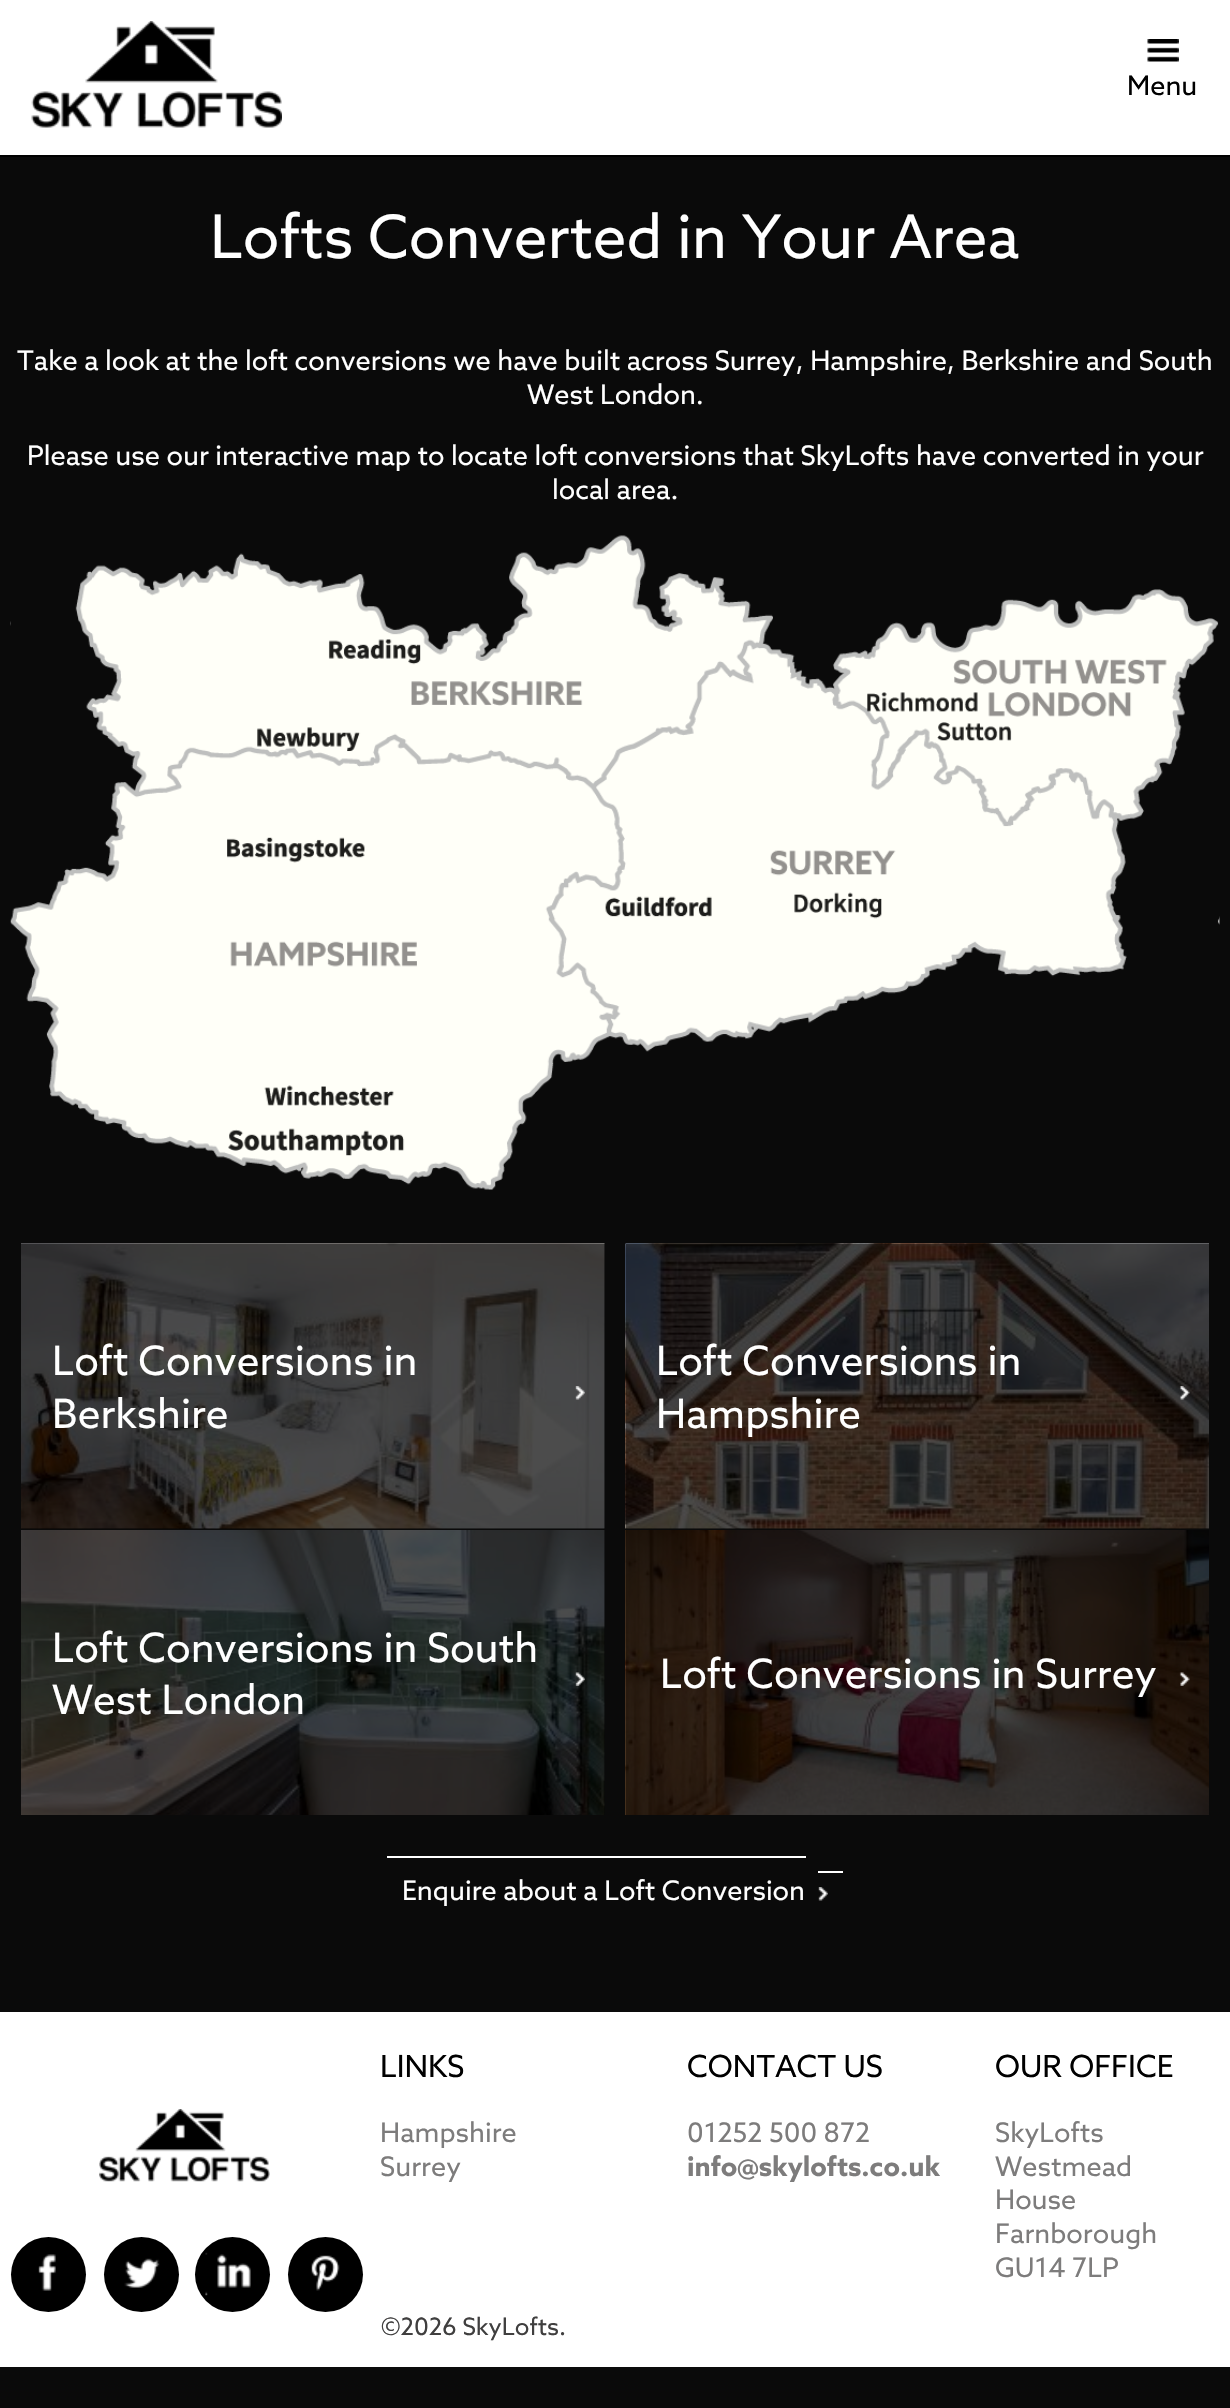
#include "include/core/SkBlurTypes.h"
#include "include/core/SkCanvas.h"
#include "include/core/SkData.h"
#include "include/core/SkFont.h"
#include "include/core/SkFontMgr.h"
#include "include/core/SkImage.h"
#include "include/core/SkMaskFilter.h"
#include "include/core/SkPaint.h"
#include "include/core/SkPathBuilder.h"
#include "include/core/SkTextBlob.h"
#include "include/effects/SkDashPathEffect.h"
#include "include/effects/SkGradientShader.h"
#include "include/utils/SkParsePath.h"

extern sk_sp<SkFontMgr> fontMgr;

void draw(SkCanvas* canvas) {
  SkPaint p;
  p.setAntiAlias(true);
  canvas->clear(SkColorSetRGB(10, 10, 10));
  p.setColor(SkColorSetRGB(3, 3, 3));
  canvas->drawRect(SkRect::MakeLTRB(604, 1530, 605, 1815), p);
  canvas->drawRect(SkRect::MakeLTRB(626, 1528, 1209, 1529), p);
  canvas->drawRect(SkRect::MakeLTRB(21, 1244, 605, 1529), p);
  p.setColor(SK_ColorWHITE);
  canvas->drawRect(SkRect::MakeLTRB(0, 0, 1230, 155), p);
  p.setColor(SK_ColorBLACK);
  canvas->drawRect(SkRect::MakeLTRB(0, 155, 1230, 157), p);
  canvas->drawImageRect(SkImages::DeferredFromEncodedData(SkData::MakeFromFileName("images/1.png")), SkRect::MakeLTRB(31, 21, 282, 128), SkSamplingOptions());
  canvas->drawImageRect(SkImages::DeferredFromEncodedData(SkData::MakeFromFileName("images/2.png")), SkRect::MakeLTRB(1147, 39, 1179, 62), SkSamplingOptions());
  canvas->drawImageRect(SkImages::DeferredFromEncodedData(SkData::MakeFromFileName("images/3.png")), SkRect::MakeLTRB(10, 535, 1220, 1190), SkSamplingOptions());
  canvas->drawImageRect(SkImages::DeferredFromEncodedData(SkData::MakeFromFileName("images/4.png")), SkRect::MakeLTRB(21, 1243, 605, 1529), SkSamplingOptions());
  canvas->drawImageRect(SkImages::DeferredFromEncodedData(SkData::MakeFromFileName("images/5.png")), SkRect::MakeLTRB(575, 1386, 585, 1400), SkSamplingOptions());
  canvas->drawImageRect(SkImages::DeferredFromEncodedData(SkData::MakeFromFileName("images/6.png")), SkRect::MakeLTRB(625, 1243, 1209, 1529), SkSamplingOptions());
  canvas->drawImageRect(SkImages::DeferredFromEncodedData(SkData::MakeFromFileName("images/7.png")), SkRect::MakeLTRB(1179, 1386, 1190, 1400), SkSamplingOptions());
  canvas->drawImageRect(SkImages::DeferredFromEncodedData(SkData::MakeFromFileName("images/8.png")), SkRect::MakeLTRB(21, 1530, 605, 1815), SkSamplingOptions());
  canvas->drawImageRect(SkImages::DeferredFromEncodedData(SkData::MakeFromFileName("images/9.png")), SkRect::MakeLTRB(575, 1672, 585, 1686), SkSamplingOptions());
  canvas->drawImageRect(SkImages::DeferredFromEncodedData(SkData::MakeFromFileName("images/10.png")), SkRect::MakeLTRB(625, 1530, 1209, 1815), SkSamplingOptions());
  canvas->drawImageRect(SkImages::DeferredFromEncodedData(SkData::MakeFromFileName("images/11.png")), SkRect::MakeLTRB(1179, 1672, 1190, 1686), SkSamplingOptions());
  p.setColor(SK_ColorWHITE);
  canvas->drawRect(SkRect::MakeLTRB(387, 1856, 806, 1858), p);
  canvas->drawRect(SkRect::MakeLTRB(818, 1871, 843, 1873), p);
  canvas->drawImageRect(SkImages::DeferredFromEncodedData(SkData::MakeFromFileName("images/12.png")), SkRect::MakeLTRB(818, 1887, 828, 1901), SkSamplingOptions());
  canvas->drawRect(SkRect::MakeLTRB(0, 2012, 1230, 2367), p);
  canvas->drawImageRect(SkImages::DeferredFromEncodedData(SkData::MakeFromFileName("images/13.png")), SkRect::MakeLTRB(99, 2109, 270, 2182), SkSamplingOptions());
  p.setColor(SK_ColorBLACK);
  canvas->drawCircle(48.5f, 2274.5f, 37.5f, p);
  canvas->drawImageRect(SkImages::DeferredFromEncodedData(SkData::MakeFromFileName("images/14.png")), SkRect::MakeLTRB(38, 2254, 56, 2291), SkSamplingOptions());
  canvas->drawCircle(141.5f, 2274.5f, 37.5f, p);
  canvas->drawImageRect(SkImages::DeferredFromEncodedData(SkData::MakeFromFileName("images/15.png")), SkRect::MakeLTRB(124, 2258, 160, 2288), SkSamplingOptions());
  canvas->drawCircle(232.5f, 2274.5f, 37.5f, p);
  canvas->drawImageRect(SkImages::DeferredFromEncodedData(SkData::MakeFromFileName("images/16.png")), SkRect::MakeLTRB(205, 2252, 251, 2296), SkSamplingOptions());
  canvas->drawCircle(325.5f, 2274.5f, 37.5f, p);
  canvas->drawImageRect(SkImages::DeferredFromEncodedData(SkData::MakeFromFileName("images/17.png")), SkRect::MakeLTRB(311, 2255, 340, 2291), SkSamplingOptions());
  SkFont font1(fontMgr->matchFamilyStyle("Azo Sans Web", SkFontStyle::Normal()), 27);
  font1.setSubpixel(true);
  canvas->drawString("Menu", 1127, 95, font1, p);
  SkFont font2(fontMgr->matchFamilyStyle("Azo Sans Web", SkFontStyle::Normal()), 60);
  font2.setSubpixel(true);
  p.setColor(SK_ColorWHITE);
  canvas->drawString("Lofts Converted in Your Area", 210, 258, font2, p);
  canvas->drawString("Take a look at the loft conversions we have built across Surrey, Hampshire, Berkshire and South", 17, 370, font1, p);
  canvas->drawString("West London.", 527, 404, font1, p);
  canvas->drawString("Please use our interactive map to locate loft conversions that SkyLofts have converted in your", 27, 465, font1, p);
  canvas->drawString("local area.", 552, 499, font1, p);
  SkFont font3(fontMgr->matchFamilyStyle("Azo Sans Web", SkFontStyle::Normal()), 40.5f);
  font3.setSubpixel(true);
  canvas->drawString("Loft Conversions in", 52, 1375, font3, p);
  canvas->drawString("Berkshire", 52, 1428, font3, p);
  canvas->drawString("Loft Conversions in", 656, 1375, font3, p);
  canvas->drawString("Hampshire", 656, 1428, font3, p);
  canvas->drawString("Loft Conversions in South", 52, 1662, font3, p);
  canvas->drawString("West London", 52, 1714, font3, p);
  canvas->drawString("Loft Conversions in Surrey", 660, 1688, font3, p);
  canvas->drawString("Enquire about a Loft Conversion", 402, 1900, font1, p);
  SkFont font4(fontMgr->matchFamilyStyle("Azo Sans Web", SkFontStyle::Normal()), 30.5f);
  font4.setSubpixel(true);
  p.setColor(SK_ColorBLACK);
  canvas->drawString("LINKS", 380, 2077, font4, p);
  p.setColor(SkColorSetRGB(125, 124, 124));
  canvas->drawString("Hampshire", 380, 2142, font1, p);
  canvas->drawString("Surrey", 380, 2176, font1, p);
  p.setColor(SK_ColorBLACK);
  canvas->drawString("CONTACT US", 687, 2077, font4, p);
  p.setColor(SkColorSetRGB(125, 124, 124));
  canvas->drawString("01252 500 872", 687, 2142, font1, p);
  SkFont font5(fontMgr->matchFamilyStyle("Azo Sans Web", SkFontStyle::Bold()), 27);
  font5.setSubpixel(true);
  canvas->drawString("info@skylofts.co.uk", 687, 2176, font5, p);
  p.setColor(SK_ColorBLACK);
  canvas->drawString("OUR OFFICE", 995, 2077, font4, p);
  p.setColor(SkColorSetRGB(125, 124, 124));
  canvas->drawString("SkyLofts", 995, 2142, font1, p);
  canvas->drawString("Westmead", 995, 2176, font1, p);
  canvas->drawString("House", 995, 2209, font1, p);
  canvas->drawString("Farnborough", 995, 2243, font1, p);
  canvas->drawString("GU14 7LP", 995, 2277, font1, p);
  SkFont font6(fontMgr->matchFamilyStyle("Azo Sans Web", SkFontStyle::Normal()), 24);
  font6.setSubpixel(true);
  p.setColor(SkColorSetRGB(64, 63, 63));
  canvas->drawString("©2026 SkyLofts.", 381, 2335, font6, p);
}
